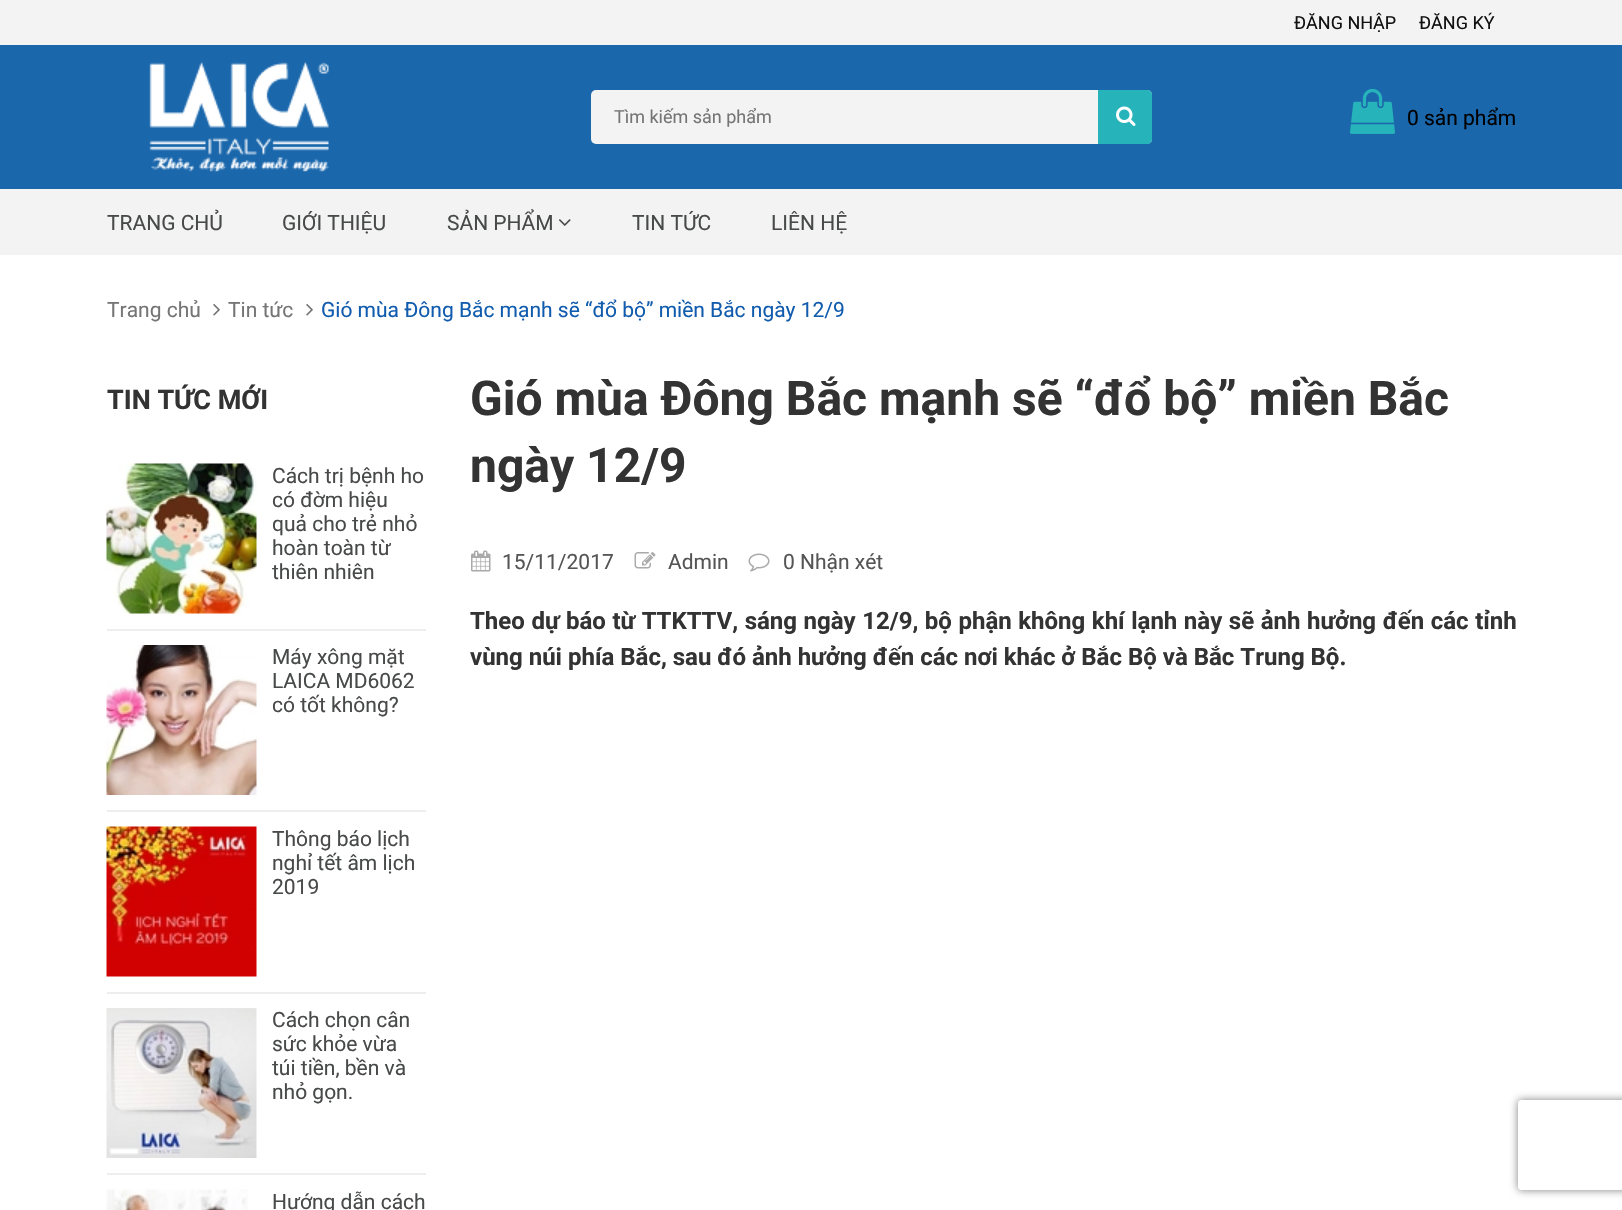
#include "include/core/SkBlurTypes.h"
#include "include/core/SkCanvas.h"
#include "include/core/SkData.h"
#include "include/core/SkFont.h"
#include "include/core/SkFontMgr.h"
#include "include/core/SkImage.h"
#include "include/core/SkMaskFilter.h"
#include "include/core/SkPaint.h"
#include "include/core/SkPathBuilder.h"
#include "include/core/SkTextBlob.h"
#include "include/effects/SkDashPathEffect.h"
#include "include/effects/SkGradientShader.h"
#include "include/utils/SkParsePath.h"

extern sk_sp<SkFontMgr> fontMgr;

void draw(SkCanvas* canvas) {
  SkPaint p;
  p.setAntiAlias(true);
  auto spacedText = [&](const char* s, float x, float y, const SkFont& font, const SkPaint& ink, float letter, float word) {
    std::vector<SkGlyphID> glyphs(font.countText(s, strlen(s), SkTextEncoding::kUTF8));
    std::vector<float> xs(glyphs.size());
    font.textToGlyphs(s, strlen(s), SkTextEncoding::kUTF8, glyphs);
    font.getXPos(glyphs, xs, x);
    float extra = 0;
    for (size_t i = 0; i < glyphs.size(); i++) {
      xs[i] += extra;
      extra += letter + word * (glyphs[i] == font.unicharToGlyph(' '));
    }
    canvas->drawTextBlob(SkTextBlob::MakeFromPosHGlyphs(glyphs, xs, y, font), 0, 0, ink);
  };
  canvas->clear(SK_ColorWHITE);
  p.setColor(SkColorSetRGB(243, 243, 243));
  canvas->drawRect(SkRect::MakeLTRB(0, 0, 1622, 45), p);
  p.setColor(SkColorSetRGB(26, 103, 172));
  canvas->drawRect(SkRect::MakeLTRB(0, 45, 1622, 189), p);
  canvas->drawImageRect(SkImages::DeferredFromEncodedData(SkData::MakeFromFileName("images/1.png")), SkRect::MakeLTRB(149, 61, 329, 173), SkSamplingOptions());
  p.setColor(SkColorSetRGB(243, 243, 243));
  canvas->drawRoundRect(SkRect::MakeLTRB(591, 90, 1152, 144), 5, 5, p);
  p.setColor(SkColorSetRGB(38, 180, 186));
  canvas->drawPath(SkPathBuilder().moveTo(1098, 90).lineTo(1147, 90).cubicTo(1150, 90, 1152, 92, 1152, 95).lineTo(1152, 139).cubicTo(1152, 142, 1150, 144, 1147, 144).lineTo(1098, 144).close().detach(), p);
  canvas->drawImageRect(SkImages::DeferredFromEncodedData(SkData::MakeFromFileName("images/2.png")), SkRect::MakeLTRB(1116, 106, 1136, 126), SkSamplingOptions());
  canvas->drawImageRect(SkImages::DeferredFromEncodedData(SkData::MakeFromFileName("images/3.png")), SkRect::MakeLTRB(1350, 88, 1395, 134), SkSamplingOptions());
  p.setColor(SkColorSetRGB(243, 243, 243));
  canvas->drawRect(SkRect::MakeLTRB(0, 189, 1622, 255), p);
  canvas->drawImageRect(SkImages::DeferredFromEncodedData(SkData::MakeFromFileName("images/4.png")), SkRect::MakeLTRB(559, 219, 571, 226), SkSamplingOptions());
  canvas->drawImageRect(SkImages::DeferredFromEncodedData(SkData::MakeFromFileName("images/5.png")), SkRect::MakeLTRB(213, 304, 220, 316), SkSamplingOptions());
  canvas->drawImageRect(SkImages::DeferredFromEncodedData(SkData::MakeFromFileName("images/5.png")), SkRect::MakeLTRB(306, 304, 313, 316), SkSamplingOptions());
  canvas->drawImageRect(SkImages::DeferredFromEncodedData(SkData::MakeFromFileName("images/6.png")), SkRect::MakeLTRB(106, 463, 257, 614), SkSamplingOptions());
  p.setColor(SkColorSetRGB(238, 238, 238));
  canvas->drawRect(SkRect::MakeLTRB(107, 629, 426, 631), p);
  canvas->drawImageRect(SkImages::DeferredFromEncodedData(SkData::MakeFromFileName("images/7.png")), SkRect::MakeLTRB(106, 645, 257, 795), SkSamplingOptions());
  canvas->drawRect(SkRect::MakeLTRB(107, 810, 426, 812), p);
  canvas->drawImageRect(SkImages::DeferredFromEncodedData(SkData::MakeFromFileName("images/8.png")), SkRect::MakeLTRB(106, 826, 257, 977), SkSamplingOptions());
  canvas->drawRect(SkRect::MakeLTRB(107, 992, 426, 994), p);
  canvas->drawImageRect(SkImages::DeferredFromEncodedData(SkData::MakeFromFileName("images/9.png")), SkRect::MakeLTRB(106, 1008, 257, 1158), SkSamplingOptions());
  canvas->drawRect(SkRect::MakeLTRB(107, 1173, 426, 1175), p);
  canvas->drawImageRect(SkImages::DeferredFromEncodedData(SkData::MakeFromFileName("images/10.png")), SkRect::MakeLTRB(106, 1189, 248, 1210), SkSamplingOptions());
  canvas->drawImageRect(SkImages::DeferredFromEncodedData(SkData::MakeFromFileName("images/11.png")), SkRect::MakeLTRB(471, 550, 491, 572), SkSamplingOptions());
  canvas->drawImageRect(SkImages::DeferredFromEncodedData(SkData::MakeFromFileName("images/12.png")), SkRect::MakeLTRB(634, 552, 656, 569), SkSamplingOptions());
  canvas->drawImageRect(SkImages::DeferredFromEncodedData(SkData::MakeFromFileName("images/13.png")), SkRect::MakeLTRB(748, 553, 770, 572), SkSamplingOptions());
  canvas->save();
  canvas->clipPath(SkPathBuilder(SkPathFillType::kEvenOdd).moveTo(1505, 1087).lineTo(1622, 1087).lineTo(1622, 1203).lineTo(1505, 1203).close().moveTo(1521, 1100).lineTo(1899, 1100).cubicTo(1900.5f, 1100, 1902, 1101.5f, 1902, 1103).lineTo(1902, 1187).cubicTo(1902, 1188.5f, 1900.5f, 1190, 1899, 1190).lineTo(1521, 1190).cubicTo(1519.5f, 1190, 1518, 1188.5f, 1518, 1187).lineTo(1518, 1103).cubicTo(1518, 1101.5f, 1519.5f, 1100, 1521, 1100).close().detach(), true);
  p.setColor(SkColorSetRGB(128, 128, 128));
  p.setMaskFilter(SkMaskFilter::MakeBlur(kNormal_SkBlurStyle, 4));
  canvas->drawRoundRect(SkRect::MakeLTRB(1518, 1100, 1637, 1190), 3, 3, p);
  p.setMaskFilter(nullptr);
  canvas->restore();
  SkFont font1(fontMgr->matchFamilyStyle("Roboto", SkFontStyle::Normal()), 18);
  font1.setSubpixel(true);
  p.setColor(SkColorSetRGB(17, 17, 17));
  canvas->drawString("ĐĂNG NHẬP", 1294, 29, font1, p);
  canvas->drawString("ĐĂNG KÝ", 1419, 29, font1, p);
  p.setColor(SkColorSetRGB(117, 117, 117));
  canvas->drawString("Tìm kiếm sản phẩm", 614, 123, font1, p);
  SkFont font2(fontMgr->matchFamilyStyle("Roboto", SkFontStyle::Normal()), 21);
  font2.setSubpixel(true);
  p.setColor(SK_ColorBLACK);
  canvas->drawString("0 sản phẩm", 1407, 125, font2, p);
  p.setColor(SkColorSetRGB(72, 73, 73));
  canvas->drawString("TRANG CHỦ", 107, 230, font2, p);
  canvas->drawString("GIỚI THIỆU", 282, 230, font2, p);
  canvas->drawString("SẢN PHẨM", 447, 230, font2, p);
  canvas->drawString("TIN TỨC", 632, 230, font2, p);
  canvas->drawString("LIÊN HỆ", 771, 230, font2, p);
  p.setColor(SkColorSetRGB(117, 117, 117));
  canvas->drawString("Trang chủ", 107, 317, font2, p);
  canvas->drawString("Tin tức", 228, 317, font2, p);
  p.setColor(SkColorSetRGB(17, 92, 174));
  canvas->drawString("Gió mùa Đông Bắc mạnh sẽ “đổ bộ” miền Bắc ngày 12/9", 321, 317, font2, p);
  SkFont font3(fontMgr->matchFamilyStyle("Roboto", SkFontStyle::Bold()), 27);
  font3.setSubpixel(true);
  p.setColor(SkColorSetRGB(51, 51, 51));
  canvas->drawString("TIN TỨC MỚI", 107, 409, font3, p);
  p.setColor(SkColorSetRGB(72, 73, 73));
  canvas->drawString("Cách trị bệnh ho", 272, 483, font2, p);
  canvas->drawString("có đờm hiệu", 272, 507, font2, p);
  canvas->drawString("quả cho trẻ nhỏ", 272, 531, font2, p);
  canvas->drawString("hoàn toàn từ", 272, 555, font2, p);
  canvas->drawString("thiên nhiên", 272, 579, font2, p);
  canvas->drawString("Máy xông mặt", 272, 664, font2, p);
  canvas->drawString("LAICA MD6062", 272, 688, font2, p);
  canvas->drawString("có tốt không?", 272, 712, font2, p);
  canvas->drawString("Thông báo lịch", 272, 846, font2, p);
  canvas->drawString("nghỉ tết âm lịch", 272, 870, font2, p);
  canvas->drawString("2019", 272, 894, font2, p);
  canvas->drawString("Cách chọn cân", 272, 1027, font2, p);
  canvas->drawString("sức khỏe vừa", 272, 1051, font2, p);
  canvas->drawString("túi tiền, bền và", 272, 1075, font2, p);
  canvas->drawString("nhỏ gọn.", 272, 1099, font2, p);
  canvas->drawString("Hướng dẫn cách", 272, 1209, font2, p);
  SkFont font4(fontMgr->matchFamilyStyle("Roboto", SkFontStyle::Bold()), 48);
  font4.setSubpixel(true);
  p.setColor(SkColorSetRGB(51, 51, 51));
  canvas->drawString("Gió mùa Đông Bắc mạnh sẽ “đổ bộ” miền Bắc", 470, 415, font4, p);
  canvas->drawString("ngày 12/9", 470, 482, font4, p);
  p.setColor(SkColorSetRGB(85, 85, 85));
  canvas->drawString("15/11/2017", 502, 569, font2, p);
  canvas->drawString("Admin", 668, 569, font2, p);
  canvas->drawString("0 Nhận xét", 783, 569, font2, p);
  SkFont font5(fontMgr->matchFamilyStyle("Roboto", SkFontStyle::Bold()), 24);
  font5.setSubpixel(true);
  p.setColor(SkColorSetRGB(51, 51, 51));
  spacedText("Theo dự báo từ TTKTTV, sáng ngày 12/9, bộ phận không khí lạnh này sẽ ảnh hưởng đến các tỉnh", 470, 629, font5, p, 0, 0.6f);
  canvas->drawString("vùng núi phía Bắc, sau đó ảnh hưởng đến các nơi khác ở Bắc Bộ và Bắc Trung Bộ.", 470, 665, font5, p);
}
